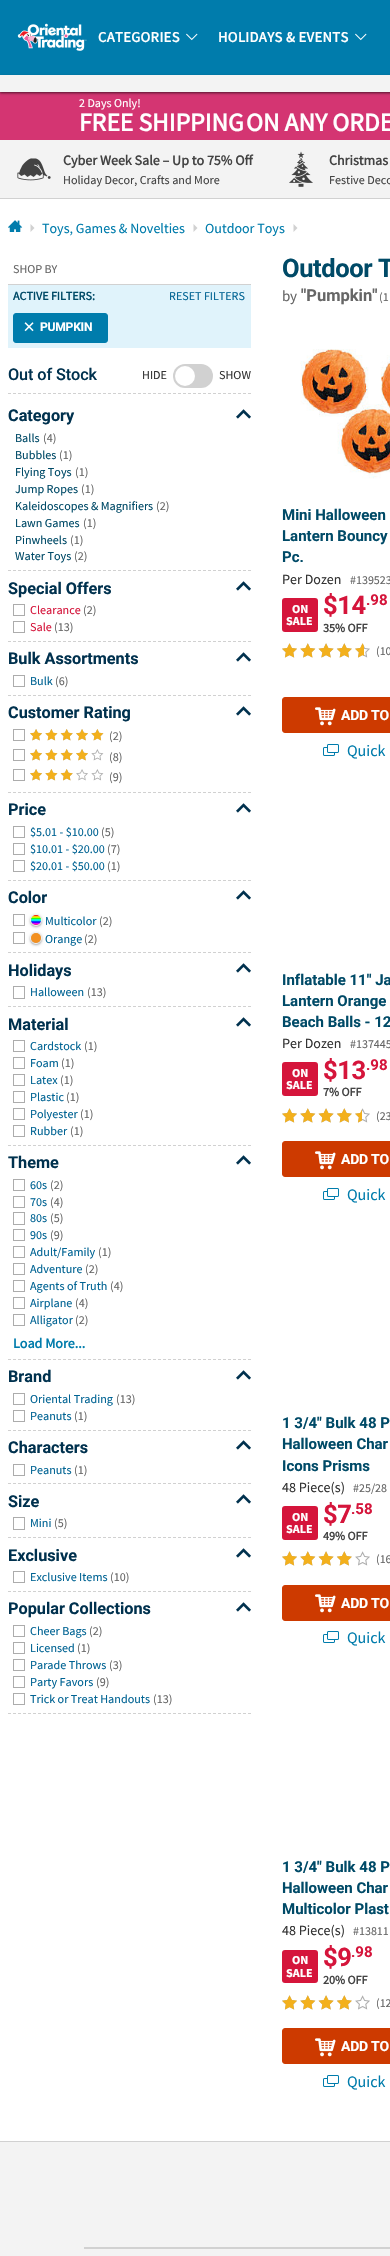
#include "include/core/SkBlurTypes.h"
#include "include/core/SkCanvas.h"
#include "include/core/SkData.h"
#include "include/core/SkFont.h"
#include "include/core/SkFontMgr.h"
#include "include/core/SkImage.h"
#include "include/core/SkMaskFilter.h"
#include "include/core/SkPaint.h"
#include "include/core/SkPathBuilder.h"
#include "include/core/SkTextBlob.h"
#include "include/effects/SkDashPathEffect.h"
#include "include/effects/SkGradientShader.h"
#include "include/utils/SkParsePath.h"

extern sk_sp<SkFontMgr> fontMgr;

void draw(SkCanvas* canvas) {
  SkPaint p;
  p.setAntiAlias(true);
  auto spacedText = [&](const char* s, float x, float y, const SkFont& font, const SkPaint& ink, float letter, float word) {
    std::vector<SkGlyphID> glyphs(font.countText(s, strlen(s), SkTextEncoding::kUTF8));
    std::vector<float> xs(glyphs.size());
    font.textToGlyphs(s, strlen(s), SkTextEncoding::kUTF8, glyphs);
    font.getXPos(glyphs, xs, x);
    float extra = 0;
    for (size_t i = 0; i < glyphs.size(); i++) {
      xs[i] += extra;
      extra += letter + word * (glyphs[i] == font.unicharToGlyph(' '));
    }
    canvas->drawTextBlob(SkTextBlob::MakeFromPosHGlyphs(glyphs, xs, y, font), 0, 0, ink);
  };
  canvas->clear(SK_ColorWHITE);
  p.setColor(SkColorSetRGB(212, 53, 114));
  canvas->drawRect(SkRect::MakeLTRB(0, 92, 390, 140), p);
  p.setColor(SkColorSetARGB(61, 0, 0, 0));
  p.setMaskFilter(SkMaskFilter::MakeBlur(kNormal_SkBlurStyle, 1));
  canvas->drawRect(SkRect::MakeLTRB(0, 1, 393, 93), p);
  p.setMaskFilter(nullptr);
  p.setColor(SkColorSetARGB(31, 0, 0, 0));
  p.setMaskFilter(SkMaskFilter::MakeBlur(kNormal_SkBlurStyle, 1.5f));
  canvas->drawRect(SkRect::MakeLTRB(0, 1, 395, 93), p);
  p.setMaskFilter(nullptr);
  p.setColor(SkColorSetRGB(0, 124, 172));
  canvas->drawRect(SkRect::MakeLTRB(0, 0, 390, 75), p);
  canvas->drawImageRect(SkImages::DeferredFromEncodedData(SkData::MakeFromFileName("images/1.png")), SkRect::MakeLTRB(17, 23, 87, 51), SkSamplingOptions());
  canvas->drawImageRect(SkImages::DeferredFromEncodedData(SkData::MakeFromFileName("images/2.png")), SkRect::MakeLTRB(186, 33, 198, 41), SkSamplingOptions());
  canvas->drawImageRect(SkImages::DeferredFromEncodedData(SkData::MakeFromFileName("images/2.png")), SkRect::MakeLTRB(355, 33, 367, 41), SkSamplingOptions());
  p.setColor(SkColorSetARGB(61, 0, 0, 0));
  p.setMaskFilter(SkMaskFilter::MakeBlur(kNormal_SkBlurStyle, 1));
  canvas->drawRect(SkRect::MakeLTRB(0, 76, 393, 93), p);
  p.setMaskFilter(nullptr);
  p.setColor(SkColorSetARGB(31, 0, 0, 0));
  p.setMaskFilter(SkMaskFilter::MakeBlur(kNormal_SkBlurStyle, 1.5f));
  canvas->drawRect(SkRect::MakeLTRB(0, 76, 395, 93), p);
  p.setMaskFilter(nullptr);
  p.setColor(SkColorSetRGB(243, 243, 243));
  canvas->drawRect(SkRect::MakeLTRB(0, 75, 390, 92), p);
  canvas->drawRect(SkRect::MakeLTRB(0, 140, 390, 198), p);
  p.setColor(SkColorSetRGB(209, 209, 209));
  canvas->drawRect(SkRect::MakeLTRB(0, 198, 390, 199), p);
  canvas->drawImageRect(SkImages::DeferredFromEncodedData(SkData::MakeFromFileName("images/3.png")), SkRect::MakeLTRB(17, 158, 51, 181), SkSamplingOptions());
  canvas->drawImageRect(SkImages::DeferredFromEncodedData(SkData::MakeFromFileName("images/4.png")), SkRect::MakeLTRB(289, 151, 313, 187), SkSamplingOptions());
  canvas->drawImageRect(SkImages::DeferredFromEncodedData(SkData::MakeFromFileName("images/5.png")), SkRect::MakeLTRB(8, 220, 23, 232), SkSamplingOptions());
  canvas->drawPath(SkPathBuilder().moveTo(30.5f, 232).lineTo(34.5f, 228).lineTo(30.5f, 224).close().detach(), p);
  canvas->drawPath(SkPathBuilder().moveTo(193.5f, 232).lineTo(197.5f, 228).lineTo(193.5f, 224).close().detach(), p);
  canvas->drawPath(SkPathBuilder().moveTo(293.5f, 232).lineTo(297.5f, 228).lineTo(293.5f, 224).close().detach(), p);
  canvas->drawRect(SkRect::MakeLTRB(8, 284, 251, 285), p);
  p.setColor(SkColorSetRGB(224, 243, 251));
  canvas->drawRect(SkRect::MakeLTRB(8, 285, 251, 348), p);
  p.setColor(SkColorSetRGB(0, 124, 172));
  canvas->drawRoundRect(SkRect::MakeLTRB(13.5f, 313.5f, 107.5f, 342.5f), 2.5f, 2.5f, p);
  p.setStyle(SkPaint::kStroke_Style);
  p.setStrokeWidth(1);
  canvas->drawRoundRect(SkRect::MakeLTRB(13.5f, 313.5f, 107.5f, 342.5f), 2.5f, 2.5f, p);
  canvas->drawImageRect(SkImages::DeferredFromEncodedData(SkData::MakeFromFileName("images/6.png")), SkRect::MakeLTRB(24, 322, 34, 332), SkSamplingOptions());
  p.setColor(SkColorSetRGB(209, 209, 209));
  p.setPathEffect(SkDashPathEffect::Make({{3, 2}}, 0));
  canvas->drawPath(SkPathBuilder().moveTo(8, 393.5f).lineTo(251, 393.5f).detach(), p);
  p.setPathEffect(nullptr);
  p.setStyle(SkPaint::kFill_Style);
  canvas->drawRoundRect(SkRect::MakeLTRB(173, 364, 213, 388), 12, 12, p);
  p.setColor(SK_ColorWHITE);
  canvas->drawCircle(185, 376, 10, p);
  p.setStyle(SkPaint::kStroke_Style);
  p.setColor(SkColorSetRGB(209, 209, 209));
  p.setPathEffect(SkDashPathEffect::Make({{3, 2}}, 0));
  canvas->drawPath(SkPathBuilder().moveTo(8, 570.5f).lineTo(251, 570.5f).detach(), p);
  p.setPathEffect(nullptr);
  canvas->drawImageRect(SkImages::DeferredFromEncodedData(SkData::MakeFromFileName("images/7.png")), SkRect::MakeLTRB(236, 409, 251, 419), SkSamplingOptions());
  p.setPathEffect(SkDashPathEffect::Make({{3, 2}}, 0));
  canvas->drawPath(SkPathBuilder().moveTo(8, 641.5f).lineTo(251, 641.5f).detach(), p);
  p.setPathEffect(nullptr);
  canvas->drawImageRect(SkImages::DeferredFromEncodedData(SkData::MakeFromFileName("images/7.png")), SkRect::MakeLTRB(236, 581, 251, 591), SkSamplingOptions());
  p.setColor(SkColorSetRGB(172, 172, 172));
  canvas->drawRect(SkRect::MakeLTRB(13.5f, 604.5f, 24.5f, 615.5f), p);
  canvas->drawRect(SkRect::MakeLTRB(13.5f, 621.5f, 24.5f, 632.5f), p);
  p.setColor(SkColorSetRGB(209, 209, 209));
  p.setPathEffect(SkDashPathEffect::Make({{3, 2}}, 0));
  canvas->drawPath(SkPathBuilder().moveTo(8, 695.5f).lineTo(251, 695.5f).detach(), p);
  p.setPathEffect(nullptr);
  canvas->drawImageRect(SkImages::DeferredFromEncodedData(SkData::MakeFromFileName("images/7.png")), SkRect::MakeLTRB(236, 652, 251, 662), SkSamplingOptions());
  p.setColor(SkColorSetRGB(172, 172, 172));
  canvas->drawRect(SkRect::MakeLTRB(13.5f, 675.5f, 24.5f, 686.5f), p);
  p.setColor(SkColorSetRGB(209, 209, 209));
  p.setPathEffect(SkDashPathEffect::Make({{3, 2}}, 0));
  canvas->drawPath(SkPathBuilder().moveTo(8, 792.5f).lineTo(251, 792.5f).detach(), p);
  p.setPathEffect(nullptr);
  canvas->drawImageRect(SkImages::DeferredFromEncodedData(SkData::MakeFromFileName("images/7.png")), SkRect::MakeLTRB(236, 706, 251, 716), SkSamplingOptions());
  p.setColor(SkColorSetRGB(172, 172, 172));
  canvas->drawRect(SkRect::MakeLTRB(13.5f, 729.5f, 24.5f, 740.5f), p);
  canvas->drawImageRect(SkImages::DeferredFromEncodedData(SkData::MakeFromFileName("images/8.png")), SkRect::MakeLTRB(30, 729, 104, 741), SkSamplingOptions());
  canvas->drawImageRect(SkImages::DeferredFromEncodedData(SkData::MakeFromFileName("images/9.png")), SkRect::MakeLTRB(30, 729, 104, 741), SkSamplingOptions());
  canvas->drawRect(SkRect::MakeLTRB(13.5f, 749.5f, 24.5f, 760.5f), p);
  canvas->drawImageRect(SkImages::DeferredFromEncodedData(SkData::MakeFromFileName("images/8.png")), SkRect::MakeLTRB(30, 749, 104, 761), SkSamplingOptions());
  canvas->drawImageRect(SkImages::DeferredFromEncodedData(SkData::MakeFromFileName("images/10.png")), SkRect::MakeLTRB(30, 749, 88, 761), SkSamplingOptions());
  canvas->drawRect(SkRect::MakeLTRB(13.5f, 769.5f, 24.5f, 780.5f), p);
  canvas->drawImageRect(SkImages::DeferredFromEncodedData(SkData::MakeFromFileName("images/8.png")), SkRect::MakeLTRB(30, 769, 104, 781), SkSamplingOptions());
  canvas->drawImageRect(SkImages::DeferredFromEncodedData(SkData::MakeFromFileName("images/11.png")), SkRect::MakeLTRB(30, 769, 73, 781), SkSamplingOptions());
  p.setColor(SkColorSetRGB(209, 209, 209));
  p.setPathEffect(SkDashPathEffect::Make({{3, 2}}, 0));
  canvas->drawPath(SkPathBuilder().moveTo(8, 880.5f).lineTo(251, 880.5f).detach(), p);
  p.setPathEffect(nullptr);
  canvas->drawImageRect(SkImages::DeferredFromEncodedData(SkData::MakeFromFileName("images/7.png")), SkRect::MakeLTRB(236, 803, 251, 813), SkSamplingOptions());
  p.setColor(SkColorSetRGB(172, 172, 172));
  canvas->drawRect(SkRect::MakeLTRB(13.5f, 826.5f, 24.5f, 837.5f), p);
  canvas->drawRect(SkRect::MakeLTRB(13.5f, 843.5f, 24.5f, 854.5f), p);
  canvas->drawRect(SkRect::MakeLTRB(13.5f, 860.5f, 24.5f, 871.5f), p);
  p.setColor(SkColorSetRGB(209, 209, 209));
  p.setPathEffect(SkDashPathEffect::Make({{3, 2}}, 0));
  canvas->drawPath(SkPathBuilder().moveTo(8, 952.5f).lineTo(251, 952.5f).detach(), p);
  p.setPathEffect(nullptr);
  canvas->drawImageRect(SkImages::DeferredFromEncodedData(SkData::MakeFromFileName("images/7.png")), SkRect::MakeLTRB(236, 890, 251, 900), SkSamplingOptions());
  p.setStyle(SkPaint::kFill_Style);
  p.setColor(SkColorSetARGB(31, 0, 0, 0));
  p.setMaskFilter(SkMaskFilter::MakeBlur(kNormal_SkBlurStyle, 1.5f));
  canvas->drawRoundRect(SkRect::MakeLTRB(30, 915, 42, 927), 6, 6, p);
  p.setMaskFilter(nullptr);
  p.setStyle(SkPaint::kStroke_Style);
  p.setColor(SkColorSetRGB(172, 172, 172));
  canvas->drawRect(SkRect::MakeLTRB(13.5f, 914.5f, 24.5f, 925.5f), p);
  p.setStyle(SkPaint::kFill_Style);
  p.setColor(SkColorSetARGB(61, 0, 0, 0));
  p.setMaskFilter(SkMaskFilter::MakeBlur(kNormal_SkBlurStyle, 1));
  canvas->drawRoundRect(SkRect::MakeLTRB(30, 915, 42, 927), 6, 6, p);
  p.setMaskFilter(nullptr);
  p.setStyle(SkPaint::kStroke_Style);
  p.setColor(SkColorSetRGB(243, 243, 243));
  canvas->drawCircle(36, 920, 5.5f, p);
  canvas->drawImageRect(SkImages::DeferredFromEncodedData(SkData::MakeFromFileName("images/12.png")), SkRect::MakeLTRB(31, 915, 41, 925), SkSamplingOptions());
  p.setStyle(SkPaint::kFill_Style);
  p.setColor(SkColorSetARGB(31, 0, 0, 0));
  p.setMaskFilter(SkMaskFilter::MakeBlur(kNormal_SkBlurStyle, 1.5f));
  canvas->drawRoundRect(SkRect::MakeLTRB(30, 933, 42, 945), 6, 6, p);
  p.setMaskFilter(nullptr);
  p.setStyle(SkPaint::kStroke_Style);
  p.setColor(SkColorSetRGB(172, 172, 172));
  canvas->drawRect(SkRect::MakeLTRB(13.5f, 932.5f, 24.5f, 943.5f), p);
  p.setStyle(SkPaint::kFill_Style);
  p.setColor(SkColorSetARGB(61, 0, 0, 0));
  p.setMaskFilter(SkMaskFilter::MakeBlur(kNormal_SkBlurStyle, 1));
  canvas->drawRoundRect(SkRect::MakeLTRB(30, 933, 42, 945), 6, 6, p);
  p.setMaskFilter(nullptr);
  p.setStyle(SkPaint::kStroke_Style);
  p.setColor(SkColorSetRGB(243, 243, 243));
  canvas->drawCircle(36, 938, 5.5f, p);
  canvas->drawImageRect(SkImages::DeferredFromEncodedData(SkData::MakeFromFileName("images/13.png")), SkRect::MakeLTRB(31, 933, 41, 943), SkSamplingOptions());
  p.setColor(SkColorSetRGB(209, 209, 209));
  p.setPathEffect(SkDashPathEffect::Make({{3, 2}}, 0));
  canvas->drawPath(SkPathBuilder().moveTo(8, 1006.5f).lineTo(251, 1006.5f).detach(), p);
  p.setPathEffect(nullptr);
  canvas->drawImageRect(SkImages::DeferredFromEncodedData(SkData::MakeFromFileName("images/7.png")), SkRect::MakeLTRB(236, 963, 251, 973), SkSamplingOptions());
  p.setColor(SkColorSetRGB(172, 172, 172));
  canvas->drawRect(SkRect::MakeLTRB(13.5f, 986.5f, 24.5f, 998.5f), p);
  p.setColor(SkColorSetRGB(209, 209, 209));
  p.setPathEffect(SkDashPathEffect::Make({{3, 2}}, 0));
  canvas->drawPath(SkPathBuilder().moveTo(8, 1145.5f).lineTo(251, 1145.5f).detach(), p);
  p.setPathEffect(nullptr);
  canvas->drawImageRect(SkImages::DeferredFromEncodedData(SkData::MakeFromFileName("images/7.png")), SkRect::MakeLTRB(236, 1017, 251, 1027), SkSamplingOptions());
  p.setColor(SkColorSetRGB(172, 172, 172));
  canvas->drawRect(SkRect::MakeLTRB(13.5f, 1040.5f, 24.5f, 1051.5f), p);
  canvas->drawRect(SkRect::MakeLTRB(13.5f, 1057.5f, 24.5f, 1068.5f), p);
  canvas->drawRect(SkRect::MakeLTRB(13.5f, 1074.5f, 24.5f, 1085.5f), p);
  canvas->drawRect(SkRect::MakeLTRB(13.5f, 1091.5f, 24.5f, 1102.5f), p);
  canvas->drawRect(SkRect::MakeLTRB(13.5f, 1108.5f, 24.5f, 1119.5f), p);
  canvas->drawRect(SkRect::MakeLTRB(13.5f, 1125.5f, 24.5f, 1136.5f), p);
  p.setColor(SkColorSetRGB(209, 209, 209));
  p.setPathEffect(SkDashPathEffect::Make({{3, 2}}, 0));
  canvas->drawPath(SkPathBuilder().moveTo(8, 1359.5f).lineTo(251, 1359.5f).detach(), p);
  p.setPathEffect(nullptr);
  canvas->drawImageRect(SkImages::DeferredFromEncodedData(SkData::MakeFromFileName("images/7.png")), SkRect::MakeLTRB(236, 1155, 251, 1165), SkSamplingOptions());
  p.setColor(SkColorSetRGB(172, 172, 172));
  canvas->drawRect(SkRect::MakeLTRB(13.5f, 1179.5f, 24.5f, 1190.5f), p);
  canvas->drawRect(SkRect::MakeLTRB(13.5f, 1196.5f, 24.5f, 1207.5f), p);
  canvas->drawRect(SkRect::MakeLTRB(13.5f, 1212.5f, 24.5f, 1224.5f), p);
  canvas->drawRect(SkRect::MakeLTRB(13.5f, 1229.5f, 24.5f, 1240.5f), p);
  canvas->drawRect(SkRect::MakeLTRB(13.5f, 1246.5f, 24.5f, 1257.5f), p);
  canvas->drawRect(SkRect::MakeLTRB(13.5f, 1263.5f, 24.5f, 1274.5f), p);
  canvas->drawRect(SkRect::MakeLTRB(13.5f, 1280.5f, 24.5f, 1291.5f), p);
  canvas->drawRect(SkRect::MakeLTRB(13.5f, 1297.5f, 24.5f, 1308.5f), p);
  canvas->drawRect(SkRect::MakeLTRB(13.5f, 1314.5f, 24.5f, 1325.5f), p);
  p.setColor(SkColorSetRGB(209, 209, 209));
  p.setPathEffect(SkDashPathEffect::Make({{3, 2}}, 0));
  canvas->drawPath(SkPathBuilder().moveTo(8, 1430.5f).lineTo(251, 1430.5f).detach(), p);
  p.setPathEffect(nullptr);
  canvas->drawImageRect(SkImages::DeferredFromEncodedData(SkData::MakeFromFileName("images/7.png")), SkRect::MakeLTRB(236, 1370, 251, 1380), SkSamplingOptions());
  p.setColor(SkColorSetRGB(172, 172, 172));
  canvas->drawRect(SkRect::MakeLTRB(13.5f, 1393.5f, 24.5f, 1404.5f), p);
  canvas->drawRect(SkRect::MakeLTRB(13.5f, 1410.5f, 24.5f, 1421.5f), p);
  p.setColor(SkColorSetRGB(209, 209, 209));
  p.setPathEffect(SkDashPathEffect::Make({{3, 2}}, 0));
  canvas->drawPath(SkPathBuilder().moveTo(8, 1483.5f).lineTo(251, 1483.5f).detach(), p);
  p.setPathEffect(nullptr);
  canvas->drawImageRect(SkImages::DeferredFromEncodedData(SkData::MakeFromFileName("images/7.png")), SkRect::MakeLTRB(236, 1440, 251, 1450), SkSamplingOptions());
  p.setColor(SkColorSetRGB(172, 172, 172));
  canvas->drawRect(SkRect::MakeLTRB(13.5f, 1464.5f, 24.5f, 1475.5f), p);
  p.setColor(SkColorSetRGB(209, 209, 209));
  p.setPathEffect(SkDashPathEffect::Make({{3, 2}}, 0));
  canvas->drawPath(SkPathBuilder().moveTo(8, 1537.5f).lineTo(251, 1537.5f).detach(), p);
  p.setPathEffect(nullptr);
  canvas->drawImageRect(SkImages::DeferredFromEncodedData(SkData::MakeFromFileName("images/7.png")), SkRect::MakeLTRB(236, 1494, 251, 1504), SkSamplingOptions());
  p.setColor(SkColorSetRGB(172, 172, 172));
  canvas->drawRect(SkRect::MakeLTRB(13.5f, 1517.5f, 24.5f, 1529.5f), p);
  p.setColor(SkColorSetRGB(209, 209, 209));
  p.setPathEffect(SkDashPathEffect::Make({{3, 2}}, 0));
  canvas->drawPath(SkPathBuilder().moveTo(8, 1591.5f).lineTo(251, 1591.5f).detach(), p);
  p.setPathEffect(nullptr);
  canvas->drawImageRect(SkImages::DeferredFromEncodedData(SkData::MakeFromFileName("images/7.png")), SkRect::MakeLTRB(236, 1548, 251, 1558), SkSamplingOptions());
  p.setColor(SkColorSetRGB(172, 172, 172));
  canvas->drawRect(SkRect::MakeLTRB(13.5f, 1571.5f, 24.5f, 1582.5f), p);
  p.setColor(SkColorSetRGB(209, 209, 209));
  p.setPathEffect(SkDashPathEffect::Make({{3, 2}}, 0));
  canvas->drawPath(SkPathBuilder().moveTo(8, 1713.5f).lineTo(251, 1713.5f).detach(), p);
  p.setPathEffect(nullptr);
  canvas->drawImageRect(SkImages::DeferredFromEncodedData(SkData::MakeFromFileName("images/7.png")), SkRect::MakeLTRB(236, 1602, 251, 1612), SkSamplingOptions());
  p.setColor(SkColorSetRGB(172, 172, 172));
  canvas->drawRect(SkRect::MakeLTRB(13.5f, 1625.5f, 24.5f, 1636.5f), p);
  canvas->drawRect(SkRect::MakeLTRB(13.5f, 1642.5f, 24.5f, 1653.5f), p);
  canvas->drawRect(SkRect::MakeLTRB(13.5f, 1659.5f, 24.5f, 1670.5f), p);
  canvas->drawRect(SkRect::MakeLTRB(13.5f, 1676.5f, 24.5f, 1687.5f), p);
  canvas->drawRect(SkRect::MakeLTRB(13.5f, 1693.5f, 24.5f, 1704.5f), p);
  canvas->drawImageRect(SkImages::DeferredFromEncodedData(SkData::MakeFromFileName("images/14.png")), SkRect::MakeLTRB(300, 349, 390, 479), SkSamplingOptions());
  p.setStyle(SkPaint::kFill_Style);
  p.setColor(SkColorSetRGB(213, 21, 59));
  canvas->drawRoundRect(SkRect::MakeLTRB(282, 598, 318, 632), 3, 3, p);
  canvas->drawImageRect(SkImages::DeferredFromEncodedData(SkData::MakeFromFileName("images/15.png")), SkRect::MakeLTRB(282, 643, 370, 658), SkSamplingOptions());
  canvas->drawImageRect(SkImages::DeferredFromEncodedData(SkData::MakeFromFileName("images/16.png")), SkRect::MakeLTRB(282, 643, 364, 658), SkSamplingOptions());
  p.setColor(SkColorSetRGB(205, 58, 0));
  canvas->drawRoundRect(SkRect::MakeLTRB(282.5f, 697.5f, 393.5f, 732.5f), 2.5f, 2.5f, p);
  p.setStyle(SkPaint::kStroke_Style);
  canvas->drawRoundRect(SkRect::MakeLTRB(282.5f, 697.5f, 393.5f, 732.5f), 2.5f, 2.5f, p);
  canvas->drawImageRect(SkImages::DeferredFromEncodedData(SkData::MakeFromFileName("images/17.png")), SkRect::MakeLTRB(315, 707, 336, 726), SkSamplingOptions());
  canvas->drawImageRect(SkImages::DeferredFromEncodedData(SkData::MakeFromFileName("images/18.png")), SkRect::MakeLTRB(323, 744, 339, 756), SkSamplingOptions());
  p.setStyle(SkPaint::kFill_Style);
  p.setColor(SkColorSetRGB(213, 21, 59));
  canvas->drawRoundRect(SkRect::MakeLTRB(282, 1062, 318, 1096), 3, 3, p);
  canvas->drawImageRect(SkImages::DeferredFromEncodedData(SkData::MakeFromFileName("images/15.png")), SkRect::MakeLTRB(282, 1108, 370, 1123), SkSamplingOptions());
  canvas->drawImageRect(SkImages::DeferredFromEncodedData(SkData::MakeFromFileName("images/19.png")), SkRect::MakeLTRB(282, 1108, 362, 1123), SkSamplingOptions());
  p.setColor(SkColorSetRGB(205, 58, 0));
  canvas->drawRoundRect(SkRect::MakeLTRB(282.5f, 1141.5f, 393.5f, 1176.5f), 2.5f, 2.5f, p);
  p.setStyle(SkPaint::kStroke_Style);
  canvas->drawRoundRect(SkRect::MakeLTRB(282.5f, 1141.5f, 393.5f, 1176.5f), 2.5f, 2.5f, p);
  canvas->drawImageRect(SkImages::DeferredFromEncodedData(SkData::MakeFromFileName("images/17.png")), SkRect::MakeLTRB(315, 1151, 336, 1170), SkSamplingOptions());
  canvas->drawImageRect(SkImages::DeferredFromEncodedData(SkData::MakeFromFileName("images/18.png")), SkRect::MakeLTRB(323, 1188, 339, 1200), SkSamplingOptions());
  p.setStyle(SkPaint::kFill_Style);
  p.setColor(SkColorSetRGB(213, 21, 59));
  canvas->drawRoundRect(SkRect::MakeLTRB(282, 1506, 318, 1540), 3, 3, p);
  canvas->drawImageRect(SkImages::DeferredFromEncodedData(SkData::MakeFromFileName("images/15.png")), SkRect::MakeLTRB(282, 1551, 370, 1566), SkSamplingOptions());
  canvas->drawImageRect(SkImages::DeferredFromEncodedData(SkData::MakeFromFileName("images/20.png")), SkRect::MakeLTRB(282, 1551, 352, 1566), SkSamplingOptions());
  p.setColor(SkColorSetRGB(205, 58, 0));
  canvas->drawRoundRect(SkRect::MakeLTRB(282.5f, 1585.5f, 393.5f, 1620.5f), 2.5f, 2.5f, p);
  p.setStyle(SkPaint::kStroke_Style);
  canvas->drawRoundRect(SkRect::MakeLTRB(282.5f, 1585.5f, 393.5f, 1620.5f), 2.5f, 2.5f, p);
  canvas->drawImageRect(SkImages::DeferredFromEncodedData(SkData::MakeFromFileName("images/17.png")), SkRect::MakeLTRB(315, 1594, 336, 1613), SkSamplingOptions());
  canvas->drawImageRect(SkImages::DeferredFromEncodedData(SkData::MakeFromFileName("images/18.png")), SkRect::MakeLTRB(323, 1631, 339, 1643), SkSamplingOptions());
  p.setStyle(SkPaint::kFill_Style);
  p.setColor(SkColorSetRGB(213, 21, 59));
  canvas->drawRoundRect(SkRect::MakeLTRB(282, 1950, 318, 1983), 3, 3, p);
  canvas->drawImageRect(SkImages::DeferredFromEncodedData(SkData::MakeFromFileName("images/15.png")), SkRect::MakeLTRB(282, 1995, 370, 2010), SkSamplingOptions());
  canvas->drawImageRect(SkImages::DeferredFromEncodedData(SkData::MakeFromFileName("images/20.png")), SkRect::MakeLTRB(282, 1995, 352, 2010), SkSamplingOptions());
  p.setColor(SkColorSetRGB(205, 58, 0));
  canvas->drawRoundRect(SkRect::MakeLTRB(282.5f, 2028.5f, 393.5f, 2063.5f), 2.5f, 2.5f, p);
  p.setStyle(SkPaint::kStroke_Style);
  canvas->drawRoundRect(SkRect::MakeLTRB(282.5f, 2028.5f, 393.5f, 2063.5f), 2.5f, 2.5f, p);
  canvas->drawImageRect(SkImages::DeferredFromEncodedData(SkData::MakeFromFileName("images/17.png")), SkRect::MakeLTRB(315, 2038, 336, 2057), SkSamplingOptions());
  canvas->drawImageRect(SkImages::DeferredFromEncodedData(SkData::MakeFromFileName("images/18.png")), SkRect::MakeLTRB(323, 2075, 339, 2087), SkSamplingOptions());
  p.setStyle(SkPaint::kFill_Style);
  p.setColor(SkColorSetRGB(243, 243, 243));
  canvas->drawRect(SkRect::MakeLTRB(0, 2142, 390, 2256), p);
  p.setColor(SkColorSetRGB(209, 209, 209));
  canvas->drawRect(SkRect::MakeLTRB(0, 2141, 390, 2142), p);
  canvas->drawRect(SkRect::MakeLTRB(84, 2247, 390, 2249), p);
  SkFont font1(fontMgr->matchFamilyStyle("Source Sans Pro", SkFontStyle::Bold()), 14.5f);
  font1.setSubpixel(true);
  p.setColor(SK_ColorWHITE);
  spacedText("CATEGORIES", 98, 42, font1, p, 0.4f, 0);
  spacedText("HOLIDAYS & EVENTS", 218, 42, font1, p, 0.4f, 0);
  SkFont font2(fontMgr->matchFamilyStyle("Source Sans Pro", SkFontStyle::Normal()), 12);
  font2.setSubpixel(true);
  canvas->drawString("2 Days Only!", 79, 107, font2, p);
  SkFont font3(fontMgr->matchFamilyStyle("Source Sans Pro", SkFontStyle::Bold()), 25.5f);
  font3.setSubpixel(true);
  canvas->drawString("FREE SHIPPING", 79, 131, font3, p);
  canvas->drawString("ON ANY ORDE", 246, 131, font3, p);
  SkFont font4(fontMgr->matchFamilyStyle("Source Sans Pro", SkFontStyle::Bold()), 14);
  font4.setSubpixel(true);
  p.setColor(SkColorSetRGB(67, 67, 67));
  canvas->drawString("Cyber Week Sale – Up to 75% Off", 63, 165, font4, p);
  SkFont font5(fontMgr->matchFamilyStyle("Source Sans Pro", SkFontStyle::Normal()), 12.1f);
  font5.setSubpixel(true);
  canvas->drawString("Holiday Decor, Crafts and More", 63, 184, font5, p);
  canvas->drawString("Christmas", 329, 165, font4, p);
  canvas->drawString("Festive Deco", 329, 184, font5, p);
  SkFont font6(fontMgr->matchFamilyStyle("Source Sans Pro", SkFontStyle::Normal()), 14);
  font6.setSubpixel(true);
  p.setColor(SkColorSetRGB(0, 124, 172));
  canvas->drawString("Toys, Games & Novelties", 42, 233, font6, p);
  canvas->drawString("Outdoor Toys", 205, 233, font6, p);
  p.setColor(SkColorSetRGB(102, 102, 102));
  canvas->drawString("SHOP BY", 13, 273, font2, p);
  SkFont font7(fontMgr->matchFamilyStyle("Source Sans Pro", SkFontStyle::Bold()), 12);
  font7.setSubpixel(true);
  p.setColor(SkColorSetRGB(0, 74, 103));
  canvas->drawString("ACTIVE FILTERS:", 13, 300, font7, p);
  p.setColor(SkColorSetRGB(0, 99, 147));
  canvas->drawString("RESET FILTERS", 169, 300, font2, p);
  SkFont font8(fontMgr->matchFamilyStyle("Roboto", SkFontStyle::Bold()), 12.1f);
  font8.setSubpixel(true);
  p.setColor(SK_ColorWHITE);
  spacedText("PUMPKIN", 40, 331, font8, p, -0.25f, 0);
  SkFont font9(fontMgr->matchFamilyStyle("Roboto", SkFontStyle(500, SkFontStyle::kNormal_Width, SkFontStyle::kUpright_Slant)), 16.25f);
  font9.setSubpixel(true);
  p.setColor(SkColorSetRGB(0, 49, 78));
  spacedText("Out of Stock", 8, 380, font9, p, -0.1f, 0);
  p.setColor(SkColorSetRGB(51, 51, 51));
  canvas->drawString("HIDE", 142, 379, font5, p);
  canvas->drawString("SHOW", 219, 379, font5, p);
  SkFont font10(fontMgr->matchFamilyStyle("Roboto", SkFontStyle::Bold()), 16.25f);
  font10.setSubpixel(true);
  p.setColor(SkColorSetRGB(0, 49, 78));
  canvas->drawString("Category", 8, 421, font10, p);
  p.setColor(SkColorSetRGB(0, 74, 103));
  canvas->drawString("Balls", 15, 442, font5, p);
  p.setColor(SkColorSetRGB(102, 102, 102));
  canvas->drawString("(4)", 43, 442, font5, p);
  p.setColor(SkColorSetRGB(0, 74, 103));
  canvas->drawString("Bubbles", 15, 459, font5, p);
  p.setColor(SkColorSetRGB(102, 102, 102));
  canvas->drawString("(1)", 59, 459, font5, p);
  p.setColor(SkColorSetRGB(0, 74, 103));
  canvas->drawString("Flying Toys", 15, 476, font5, p);
  p.setColor(SkColorSetRGB(102, 102, 102));
  canvas->drawString("(1)", 75, 476, font5, p);
  p.setColor(SkColorSetRGB(0, 74, 103));
  canvas->drawString("Jump Ropes", 15, 493, font5, p);
  p.setColor(SkColorSetRGB(102, 102, 102));
  canvas->drawString("(1)", 81, 493, font5, p);
  p.setColor(SkColorSetRGB(0, 74, 103));
  canvas->drawString("Kaleidoscopes & Magnifiers", 15, 510, font5, p);
  p.setColor(SkColorSetRGB(102, 102, 102));
  canvas->drawString("(2)", 156, 510, font5, p);
  p.setColor(SkColorSetRGB(0, 74, 103));
  canvas->drawString("Lawn Games", 15, 527, font5, p);
  p.setColor(SkColorSetRGB(102, 102, 102));
  canvas->drawString("(1)", 83, 527, font5, p);
  p.setColor(SkColorSetRGB(0, 74, 103));
  canvas->drawString("Pinwheels", 15, 544, font5, p);
  p.setColor(SkColorSetRGB(102, 102, 102));
  canvas->drawString("(1)", 70, 544, font5, p);
  p.setColor(SkColorSetRGB(0, 74, 103));
  canvas->drawString("Water Toys", 15, 560, font5, p);
  p.setColor(SkColorSetRGB(102, 102, 102));
  canvas->drawString("(2)", 74, 560, font5, p);
  p.setColor(SkColorSetRGB(0, 49, 78));
  canvas->drawString("Special Offers", 8, 594, font10, p);
  p.setColor(SkColorSetRGB(213, 21, 59));
  canvas->drawString("Clearance", 30, 614, font5, p);
  p.setColor(SkColorSetRGB(102, 102, 102));
  canvas->drawString("(2)", 83, 614, font5, p);
  p.setColor(SkColorSetRGB(213, 21, 59));
  canvas->drawString("Sale", 30, 631, font5, p);
  p.setColor(SkColorSetRGB(102, 102, 102));
  canvas->drawString("(13)", 54, 631, font5, p);
  p.setColor(SkColorSetRGB(0, 49, 78));
  canvas->drawString("Bulk Assortments", 8, 664, font10, p);
  p.setColor(SkColorSetRGB(0, 99, 147));
  canvas->drawString("Bulk", 30, 685, font5, p);
  p.setColor(SkColorSetRGB(102, 102, 102));
  canvas->drawString("(6)", 55, 685, font5, p);
  p.setColor(SkColorSetRGB(0, 49, 78));
  canvas->drawString("Customer Rating", 8, 718, font10, p);
  p.setColor(SkColorSetRGB(102, 102, 102));
  canvas->drawString("(2)", 109, 740, font5, p);
  canvas->drawString("(8)", 109, 761, font5, p);
  canvas->drawString("(9)", 109, 781, font5, p);
  p.setColor(SkColorSetRGB(0, 49, 78));
  canvas->drawString("Price", 8, 815, font10, p);
  p.setColor(SkColorSetRGB(0, 99, 147));
  canvas->drawString("$5.01 - $10.00", 30, 836, font5, p);
  p.setColor(SkColorSetRGB(102, 102, 102));
  canvas->drawString("(5)", 101, 836, font5, p);
  p.setColor(SkColorSetRGB(0, 99, 147));
  canvas->drawString("$10.01 - $20.00", 30, 853, font5, p);
  p.setColor(SkColorSetRGB(102, 102, 102));
  canvas->drawString("(7)", 107, 853, font5, p);
  p.setColor(SkColorSetRGB(0, 99, 147));
  canvas->drawString("$20.01 - $50.00", 30, 870, font5, p);
  p.setColor(SkColorSetRGB(102, 102, 102));
  canvas->drawString("(1)", 107, 870, font5, p);
  p.setColor(SkColorSetRGB(0, 49, 78));
  canvas->drawString("Color", 8, 903, font10, p);
  p.setColor(SkColorSetRGB(0, 99, 147));
  canvas->drawString("Multicolor", 45, 925, font5, p);
  p.setColor(SkColorSetRGB(102, 102, 102));
  canvas->drawString("(2)", 99, 925, font5, p);
  p.setColor(SkColorSetRGB(0, 99, 147));
  canvas->drawString("Orange", 45, 943, font5, p);
  p.setColor(SkColorSetRGB(102, 102, 102));
  canvas->drawString("(2)", 84, 943, font5, p);
  p.setColor(SkColorSetRGB(0, 49, 78));
  canvas->drawString("Holidays", 8, 976, font10, p);
  p.setColor(SkColorSetRGB(0, 99, 147));
  canvas->drawString("Halloween", 30, 996, font5, p);
  p.setColor(SkColorSetRGB(102, 102, 102));
  canvas->drawString("(13)", 87, 996, font5, p);
  p.setColor(SkColorSetRGB(0, 49, 78));
  canvas->drawString("Material", 8, 1030, font10, p);
  p.setColor(SkColorSetRGB(0, 99, 147));
  canvas->drawString("Cardstock", 30, 1050, font5, p);
  p.setColor(SkColorSetRGB(102, 102, 102));
  canvas->drawString("(1)", 84, 1050, font5, p);
  p.setColor(SkColorSetRGB(0, 99, 147));
  canvas->drawString("Foam", 30, 1067, font5, p);
  p.setColor(SkColorSetRGB(102, 102, 102));
  canvas->drawString("(1)", 61, 1067, font5, p);
  p.setColor(SkColorSetRGB(0, 99, 147));
  canvas->drawString("Latex", 30, 1084, font5, p);
  p.setColor(SkColorSetRGB(102, 102, 102));
  canvas->drawString("(1)", 60, 1084, font5, p);
  p.setColor(SkColorSetRGB(0, 99, 147));
  canvas->drawString("Plastic", 30, 1101, font5, p);
  p.setColor(SkColorSetRGB(102, 102, 102));
  canvas->drawString("(1)", 66, 1101, font5, p);
  p.setColor(SkColorSetRGB(0, 99, 147));
  canvas->drawString("Polyester", 30, 1118, font5, p);
  p.setColor(SkColorSetRGB(102, 102, 102));
  canvas->drawString("(1)", 80, 1118, font5, p);
  p.setColor(SkColorSetRGB(0, 99, 147));
  canvas->drawString("Rubber", 30, 1135, font5, p);
  p.setColor(SkColorSetRGB(102, 102, 102));
  canvas->drawString("(1)", 70, 1135, font5, p);
  p.setColor(SkColorSetRGB(0, 49, 78));
  canvas->drawString("Theme", 8, 1168, font10, p);
  p.setColor(SkColorSetRGB(0, 99, 147));
  canvas->drawString("60s", 30, 1189, font5, p);
  p.setColor(SkColorSetRGB(102, 102, 102));
  canvas->drawString("(2)", 50, 1189, font5, p);
  p.setColor(SkColorSetRGB(0, 99, 147));
  canvas->drawString("70s", 30, 1206, font5, p);
  p.setColor(SkColorSetRGB(102, 102, 102));
  canvas->drawString("(4)", 50, 1206, font5, p);
  p.setColor(SkColorSetRGB(0, 99, 147));
  canvas->drawString("80s", 30, 1222, font5, p);
  p.setColor(SkColorSetRGB(102, 102, 102));
  canvas->drawString("(5)", 50, 1222, font5, p);
  p.setColor(SkColorSetRGB(0, 99, 147));
  canvas->drawString("90s", 30, 1239, font5, p);
  p.setColor(SkColorSetRGB(102, 102, 102));
  canvas->drawString("(9)", 50, 1239, font5, p);
  p.setColor(SkColorSetRGB(0, 99, 147));
  canvas->drawString("Adult/Family", 30, 1256, font5, p);
  p.setColor(SkColorSetRGB(102, 102, 102));
  canvas->drawString("(1)", 98, 1256, font5, p);
  p.setColor(SkColorSetRGB(0, 99, 147));
  canvas->drawString("Adventure", 30, 1273, font5, p);
  p.setColor(SkColorSetRGB(102, 102, 102));
  canvas->drawString("(2)", 85, 1273, font5, p);
  p.setColor(SkColorSetRGB(0, 99, 147));
  canvas->drawString("Agents of Truth", 30, 1290, font5, p);
  p.setColor(SkColorSetRGB(102, 102, 102));
  canvas->drawString("(4)", 110, 1290, font5, p);
  p.setColor(SkColorSetRGB(0, 99, 147));
  canvas->drawString("Airplane", 30, 1307, font5, p);
  p.setColor(SkColorSetRGB(102, 102, 102));
  canvas->drawString("(4)", 75, 1307, font5, p);
  p.setColor(SkColorSetRGB(0, 99, 147));
  canvas->drawString("Alligator", 30, 1324, font5, p);
  p.setColor(SkColorSetRGB(102, 102, 102));
  canvas->drawString("(2)", 75, 1324, font5, p);
  p.setColor(SkColorSetRGB(0, 124, 172));
  canvas->drawString("Load More...", 13, 1348, font4, p);
  p.setColor(SkColorSetRGB(0, 49, 78));
  canvas->drawString("Brand", 8, 1382, font10, p);
  p.setColor(SkColorSetRGB(0, 99, 147));
  canvas->drawString("Oriental Trading", 30, 1403, font5, p);
  p.setColor(SkColorSetRGB(102, 102, 102));
  canvas->drawString("(13)", 116, 1403, font5, p);
  p.setColor(SkColorSetRGB(0, 99, 147));
  canvas->drawString("Peanuts", 30, 1420, font5, p);
  p.setColor(SkColorSetRGB(102, 102, 102));
  canvas->drawString("(1)", 74, 1420, font5, p);
  p.setColor(SkColorSetRGB(0, 49, 78));
  canvas->drawString("Characters", 8, 1453, font10, p);
  p.setColor(SkColorSetRGB(0, 99, 147));
  canvas->drawString("Peanuts", 30, 1474, font5, p);
  p.setColor(SkColorSetRGB(102, 102, 102));
  canvas->drawString("(1)", 74, 1474, font5, p);
  p.setColor(SkColorSetRGB(0, 49, 78));
  canvas->drawString("Size", 8, 1507, font10, p);
  p.setColor(SkColorSetRGB(0, 99, 147));
  canvas->drawString("Mini", 30, 1527, font5, p);
  p.setColor(SkColorSetRGB(102, 102, 102));
  canvas->drawString("(5)", 54, 1527, font5, p);
  p.setColor(SkColorSetRGB(0, 49, 78));
  canvas->drawString("Exclusive", 8, 1561, font10, p);
  p.setColor(SkColorSetRGB(0, 99, 147));
  canvas->drawString("Exclusive Items", 30, 1581, font5, p);
  p.setColor(SkColorSetRGB(102, 102, 102));
  canvas->drawString("(10)", 110, 1581, font5, p);
  p.setColor(SkColorSetRGB(0, 49, 78));
  canvas->drawString("Popular Collections", 8, 1614, font10, p);
  p.setColor(SkColorSetRGB(0, 99, 147));
  canvas->drawString("Cheer Bags", 30, 1635, font5, p);
  p.setColor(SkColorSetRGB(102, 102, 102));
  canvas->drawString("(2)", 89, 1635, font5, p);
  p.setColor(SkColorSetRGB(0, 99, 147));
  canvas->drawString("Licensed", 30, 1652, font5, p);
  p.setColor(SkColorSetRGB(102, 102, 102));
  canvas->drawString("(1)", 77, 1652, font5, p);
  p.setColor(SkColorSetRGB(0, 99, 147));
  canvas->drawString("Parade Throws", 30, 1669, font5, p);
  p.setColor(SkColorSetRGB(102, 102, 102));
  canvas->drawString("(3)", 109, 1669, font5, p);
  p.setColor(SkColorSetRGB(0, 99, 147));
  canvas->drawString("Party Favors", 30, 1686, font5, p);
  p.setColor(SkColorSetRGB(102, 102, 102));
  canvas->drawString("(9)", 96, 1686, font5, p);
  p.setColor(SkColorSetRGB(0, 99, 147));
  canvas->drawString("Trick or Treat Handouts", 30, 1703, font5, p);
  p.setColor(SkColorSetRGB(102, 102, 102));
  canvas->drawString("(13)", 153, 1703, font5, p);
  SkFont font11(fontMgr->matchFamilyStyle("Roboto", SkFontStyle::Bold()), 25.5f);
  font11.setSubpixel(true);
  p.setColor(SkColorSetRGB(0, 74, 103));
  spacedText("Outdoor T", 282, 277, font11, p, -0.4f, 0);
  SkFont font12(fontMgr->matchFamilyStyle("Source Sans Pro", SkFontStyle::Normal()), 15);
  font12.setSubpixel(true);
  p.setColor(SkColorSetRGB(102, 102, 102));
  spacedText("by", 282, 301, font12, p, -0.4f, 0);
  SkFont font13(fontMgr->matchFamilyStyle("Roboto", SkFontStyle::Bold()), 16.5f);
  font13.setSubpixel(true);
  canvas->drawString("\"Pumpkin\"", 301, 301, font13, p);
  canvas->drawString("(1", 379, 301, font5, p);
  SkFont font14(fontMgr->matchFamilyStyle("Roboto", SkFontStyle::Bold()), 15);
  font14.setSubpixel(true);
  p.setColor(SkColorSetRGB(0, 74, 103));
  canvas->drawString("Mini Halloween", 282, 520, font14, p);
  canvas->drawString("Lantern Bouncy", 282, 541, font14, p);
  canvas->drawString("Pc.", 282, 562, font14, p);
  p.setColor(SkColorSetRGB(51, 51, 51));
  canvas->drawString("Per Dozen", 282, 584, font6, p);
  p.setColor(SkColorSetRGB(102, 102, 102));
  canvas->drawString("#139523", 350, 584, font2, p);
  SkFont font15(fontMgr->matchFamilyStyle("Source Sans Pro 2", SkFontStyle::Bold()), 12.1f);
  font15.setSubpixel(true);
  p.setColor(SK_ColorWHITE);
  canvas->drawString("ON", 292, 613, font15, p);
  canvas->drawString("SALE", 286, 625, font15, p);
  p.setColor(SkColorSetRGB(213, 21, 59));
  spacedText("$14", 323, 614, font11, p, -0.4f, 0);
  canvas->drawString(".98", 366, 605, font14, p);
  SkFont font16(fontMgr->matchFamilyStyle("Source Sans Pro", SkFontStyle::Bold()), 12.1f);
  font16.setSubpixel(true);
  p.setColor(SkColorSetRGB(67, 67, 67));
  canvas->drawString("35% OFF", 323, 632, font16, p);
  p.setColor(SkColorSetRGB(102, 102, 102));
  canvas->drawString("(10", 376, 655, font2, p);
  SkFont font17(fontMgr->matchFamilyStyle("Roboto", SkFontStyle::Bold()), 14);
  font17.setSubpixel(true);
  p.setColor(SK_ColorWHITE);
  spacedText("ADD TO", 341, 720, font17, p, -0.25f, 0);
  SkFont font18(fontMgr->matchFamilyStyle("Source Sans Pro", SkFontStyle::Normal()), 16);
  font18.setSubpixel(true);
  p.setColor(SkColorSetRGB(0, 124, 172));
  canvas->drawString("Quick", 347, 756, font18, p);
  p.setColor(SkColorSetRGB(0, 74, 103));
  canvas->drawString("Inflatable 11\" Ja", 282, 985, font14, p);
  canvas->drawString("Lantern Orange", 282, 1006, font14, p);
  canvas->drawString("Beach Balls - 12", 282, 1027, font14, p);
  p.setColor(SkColorSetRGB(51, 51, 51));
  canvas->drawString("Per Dozen", 282, 1048, font6, p);
  p.setColor(SkColorSetRGB(102, 102, 102));
  canvas->drawString("#137445", 350, 1048, font2, p);
  p.setColor(SK_ColorWHITE);
  canvas->drawString("ON", 292, 1077, font15, p);
  canvas->drawString("SALE", 286, 1089, font15, p);
  p.setColor(SkColorSetRGB(213, 21, 59));
  spacedText("$13", 323, 1079, font11, p, -0.4f, 0);
  canvas->drawString(".98", 366, 1070, font14, p);
  p.setColor(SkColorSetRGB(67, 67, 67));
  canvas->drawString("7% OFF", 323, 1096, font16, p);
  p.setColor(SkColorSetRGB(102, 102, 102));
  canvas->drawString("(23", 376, 1120, font2, p);
  p.setColor(SK_ColorWHITE);
  spacedText("ADD TO", 341, 1164, font17, p, -0.25f, 0);
  p.setColor(SkColorSetRGB(0, 124, 172));
  canvas->drawString("Quick", 347, 1200, font18, p);
  p.setColor(SkColorSetRGB(0, 74, 103));
  canvas->drawString("1 3/4\" Bulk 48 P", 282, 1428, font14, p);
  canvas->drawString("Halloween Char", 282, 1449, font14, p);
  canvas->drawString("Icons Prisms", 282, 1471, font14, p);
  p.setColor(SkColorSetRGB(51, 51, 51));
  canvas->drawString("48 Piece(s)", 282, 1492, font6, p);
  p.setColor(SkColorSetRGB(102, 102, 102));
  canvas->drawString("#25/28", 353, 1492, font2, p);
  p.setColor(SK_ColorWHITE);
  canvas->drawString("ON", 292, 1521, font15, p);
  canvas->drawString("SALE", 286, 1533, font15, p);
  p.setColor(SkColorSetRGB(213, 21, 59));
  spacedText("$7", 323, 1523, font11, p, -0.4f, 0);
  canvas->drawString(".58", 351, 1514, font14, p);
  p.setColor(SkColorSetRGB(67, 67, 67));
  canvas->drawString("49% OFF", 323, 1540, font16, p);
  p.setColor(SkColorSetRGB(102, 102, 102));
  canvas->drawString("(16", 376, 1563, font2, p);
  p.setColor(SK_ColorWHITE);
  spacedText("ADD TO", 341, 1608, font17, p, -0.25f, 0);
  p.setColor(SkColorSetRGB(0, 124, 172));
  canvas->drawString("Quick", 347, 1643, font18, p);
  p.setColor(SkColorSetRGB(0, 74, 103));
  canvas->drawString("1 3/4\" Bulk 48 P", 282, 1872, font14, p);
  canvas->drawString("Halloween Char", 282, 1893, font14, p);
  canvas->drawString("Multicolor Plast", 282, 1914, font14, p);
  p.setColor(SkColorSetRGB(51, 51, 51));
  canvas->drawString("48 Piece(s)", 282, 1935, font6, p);
  p.setColor(SkColorSetRGB(102, 102, 102));
  canvas->drawString("#13811", 353, 1935, font2, p);
  p.setColor(SK_ColorWHITE);
  canvas->drawString("ON", 292, 1964, font15, p);
  canvas->drawString("SALE", 286, 1977, font15, p);
  p.setColor(SkColorSetRGB(213, 21, 59));
  spacedText("$9", 323, 1966, font11, p, -0.4f, 0);
  canvas->drawString(".98", 351, 1957, font14, p);
  p.setColor(SkColorSetRGB(67, 67, 67));
  canvas->drawString("20% OFF", 323, 1984, font16, p);
  p.setColor(SkColorSetRGB(102, 102, 102));
  canvas->drawString("(12", 376, 2007, font2, p);
  p.setColor(SK_ColorWHITE);
  spacedText("ADD TO", 341, 2051, font17, p, -0.25f, 0);
  p.setColor(SkColorSetRGB(0, 124, 172));
  canvas->drawString("Quick", 347, 2087, font18, p);
}
